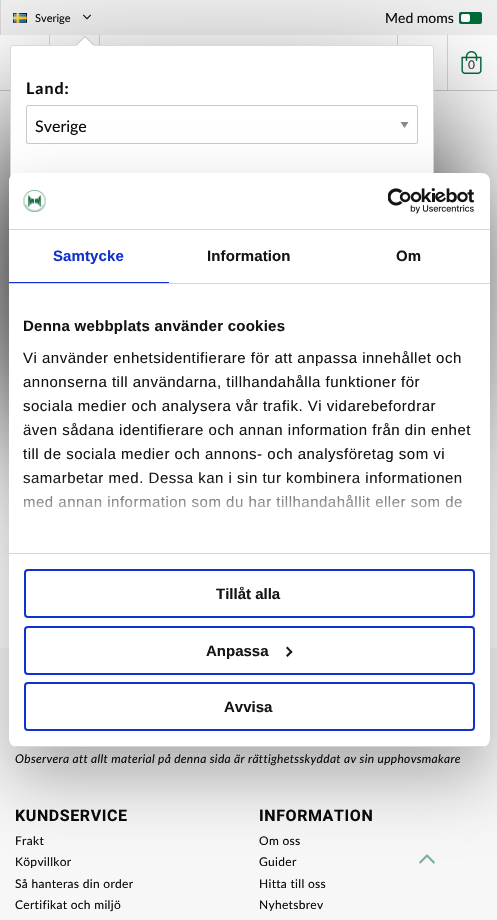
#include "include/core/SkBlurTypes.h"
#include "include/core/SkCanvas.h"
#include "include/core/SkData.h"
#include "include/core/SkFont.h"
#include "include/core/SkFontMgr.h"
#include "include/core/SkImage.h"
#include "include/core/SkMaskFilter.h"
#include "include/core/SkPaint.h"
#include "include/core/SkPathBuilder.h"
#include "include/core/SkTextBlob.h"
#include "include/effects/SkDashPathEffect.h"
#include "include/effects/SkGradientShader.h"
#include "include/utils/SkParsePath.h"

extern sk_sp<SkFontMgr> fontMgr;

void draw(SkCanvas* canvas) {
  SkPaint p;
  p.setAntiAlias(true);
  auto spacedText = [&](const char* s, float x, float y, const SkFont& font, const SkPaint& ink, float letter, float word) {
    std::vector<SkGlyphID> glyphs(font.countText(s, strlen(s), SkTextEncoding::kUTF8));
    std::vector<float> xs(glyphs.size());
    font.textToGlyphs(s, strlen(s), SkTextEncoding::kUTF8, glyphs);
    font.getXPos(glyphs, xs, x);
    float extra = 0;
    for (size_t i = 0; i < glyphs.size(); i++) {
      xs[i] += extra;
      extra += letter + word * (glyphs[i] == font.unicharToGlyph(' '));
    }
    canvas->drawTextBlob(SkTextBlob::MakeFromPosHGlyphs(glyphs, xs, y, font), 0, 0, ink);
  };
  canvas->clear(SK_ColorWHITE);
  p.setColor(SkColorSetRGB(208, 208, 208));
  canvas->drawRect(SkRect::MakeLTRB(0, 90, 497, 91), p);
  p.setColor(SkColorSetRGB(241, 241, 241));
  canvas->drawRect(SkRect::MakeLTRB(1, 0, 497, 35), p);
  p.setColor(SkColorSetRGB(217, 217, 217));
  canvas->drawRect(SkRect::MakeLTRB(0, 0, 1, 35), p);
  canvas->drawImageRect(SkImages::DeferredFromEncodedData(SkData::MakeFromFileName("images/1.png")), SkRect::MakeLTRB(13, 13, 27, 23), SkSamplingOptions());
  canvas->drawImageRect(SkImages::DeferredFromEncodedData(SkData::MakeFromFileName("images/2.png")), SkRect::MakeLTRB(83, 14, 91, 20), SkSamplingOptions());
  p.setColor(SkColorSetRGB(204, 204, 204));
  canvas->drawPath(SkPathBuilder().moveTo(95, 46).lineTo(75, 46).lineTo(85, 36).close().detach(), p);
  p.setColor(SkColorSetRGB(217, 217, 217));
  canvas->drawRect(SkRect::MakeLTRB(49, 35, 50, 45), p);
  canvas->drawRect(SkRect::MakeLTRB(99, 35, 100, 45), p);
  canvas->drawRect(SkRect::MakeLTRB(397, 35, 398, 45), p);
  canvas->drawRect(SkRect::MakeLTRB(447, 35, 448, 90), p);
  p.setColor(SkColorSetRGB(247, 247, 247));
  canvas->drawRect(SkRect::MakeLTRB(0, 648, 497, 920), p);
  canvas->drawImageRect(SkImages::DeferredFromEncodedData(SkData::MakeFromFileName("images/6.png")), SkRect::MakeLTRB(419, 854, 435, 864), SkSamplingOptions());
  SkFont font1(fontMgr->matchFamilyStyle("Lato", SkFontStyle::Normal()), 11);
  font1.setSubpixel(true);
  p.setColor(SkColorSetRGB(10, 10, 10));
  canvas->drawString("Sverige", 35, 22, font1, p);
  SkFont font2(fontMgr->matchFamilyStyle("Lato", SkFontStyle::Normal()), 12);
  font2.setSubpixel(true);
  p.setColor(SkColorSetRGB(68, 68, 68));
  canvas->drawString("0", 468, 69, font2, p);
  canvas->drawImageRect(SkImages::DeferredFromEncodedData(SkData::MakeFromFileName("images/3.png")), SkRect::MakeLTRB(461, 51, 482, 74), SkSamplingOptions());
  p.setColor(SK_ColorBLACK);
  p.setMaskFilter(SkMaskFilter::MakeBlur(kNormal_SkBlurStyle, 71.5f));
  canvas->drawRoundRect(SkRect::MakeLTRB(10, 120, 434, 412), 3, 3, p);
  p.setMaskFilter(nullptr);
  p.setColor(SkColorSetRGB(0, 105, 56));
  canvas->drawRoundRect(SkRect::MakeLTRB(459, 12, 482, 24), 2, 2, p);
  p.setColor(SK_ColorWHITE);
  canvas->drawRoundRect(SkRect::MakeLTRB(461, 14, 470, 22), 2, 2, p);
  SkFont font3(fontMgr->matchFamilyStyle("Lato", SkFontStyle::Normal()), 14);
  font3.setSubpixel(true);
  p.setColor(SkColorSetRGB(10, 10, 10));
  canvas->drawString("Med moms", 385, 23, font3, p);
  p.setColor(SK_ColorWHITE);
  canvas->drawRoundRect(SkRect::MakeLTRB(10.5f, 45.5f, 433.5f, 336.5f), 2.5f, 2.5f, p);
  p.setStyle(SkPaint::kStroke_Style);
  p.setStrokeWidth(1);
  p.setColor(SkColorSetRGB(217, 217, 217));
  canvas->drawRoundRect(SkRect::MakeLTRB(10.5f, 45.5f, 433.5f, 336.5f), 2.5f, 2.5f, p);
  p.setStyle(SkPaint::kFill_Style);
  p.setColor(SK_ColorWHITE);
  canvas->drawPath(SkPathBuilder().moveTo(95, 47).lineTo(75, 47).lineTo(85, 37).close().detach(), p);
  p.setColor(SkColorSetRGB(138, 138, 138));
  canvas->drawPath(SkPathBuilder().moveTo(400.5f, 122).lineTo(408.5f, 122).lineTo(404.5f, 128).close().detach(), p);
  p.setStyle(SkPaint::kStroke_Style);
  p.setColor(SkColorSetRGB(202, 202, 202));
  canvas->drawRoundRect(SkRect::MakeLTRB(26.5f, 105.5f, 417.5f, 143.5f), 1.5f, 1.5f, p);
  SkFont font4(fontMgr->matchFamilyStyle("Lato", SkFontStyle::Normal()), 16);
  font4.setSubpixel(true);
  p.setStyle(SkPaint::kFill_Style);
  p.setColor(SkColorSetRGB(10, 10, 10));
  canvas->drawString("Sverige", 35, 132, font4, p);
  SkFont font5(fontMgr->matchFamilyStyle("Lato", SkFontStyle::Bold()), 16);
  font5.setSubpixel(true);
  spacedText("Land:", 26, 94, font5, p, 1, 0);
  p.setColor(SkColorSetARGB(77, 0, 0, 0));
  p.setMaskFilter(SkMaskFilter::MakeBlur(kNormal_SkBlurStyle, 34));
  canvas->drawRoundRect(SkRect::MakeLTRB(9, 205, 490, 779), 8, 8, p);
  p.setMaskFilter(nullptr);
  p.setColor(SK_ColorWHITE);
  canvas->drawRoundRect(SkRect::MakeLTRB(9, 173, 490, 747), 8, 8, p);
  p.setColor(SkColorSetRGB(214, 214, 214));
  canvas->drawRect(SkRect::MakeLTRB(9, 229, 490, 230), p);
  canvas->drawImageRect(SkImages::DeferredFromEncodedData(SkData::MakeFromFileName("images/4.png")), SkRect::MakeLTRB(23, 190, 46, 212), SkSamplingOptions());
  canvas->drawImageRect(SkImages::DeferredFromEncodedData(SkData::MakeFromFileName("images/5.png")), SkRect::MakeLTRB(388, 188, 475, 214), SkSamplingOptions());
  canvas->drawRect(SkRect::MakeLTRB(9, 283, 490, 284), p);
  p.setColor(SkColorSetRGB(16, 50, 207));
  canvas->drawRect(SkRect::MakeLTRB(9, 282, 169, 283), p);
  SkFont font6(fontMgr->matchFamilyStyle("Liberation Sans", SkFontStyle::Bold()), 15);
  font6.setSubpixel(true);
  spacedText("Samtycke", 53, 261, font6, p, 0.1f, 0);
  p.setColor(SkColorSetRGB(20, 20, 20));
  spacedText("Information", 207, 261, font6, p, 0.1f, 0);
  spacedText("Om", 396, 261, font6, p, 0.1f, 0);
  p.setColor(SkColorSetRGB(214, 214, 214));
  canvas->drawRect(SkRect::MakeLTRB(9, 553, 490, 554), p);
  p.setColor(SkColorSetRGB(20, 20, 20));
  spacedText("Denna webbplats använder cookies", 23, 331, font6, p, 0.25f, 0);
  SkFont font7(fontMgr->matchFamilyStyle("Liberation Sans", SkFontStyle::Normal()), 15);
  font7.setSubpixel(true);
  spacedText("Vi använder enhetsidentifierare för att anpassa innehållet och", 23, 363, font7, p, 0.5f, 0);
  spacedText("annonserna till användarna, tillhandahålla funktioner för", 23, 387, font7, p, 0.5f, 0);
  spacedText("sociala medier och analysera vår trafik. Vi vidarebefordrar", 23, 411, font7, p, 0.5f, 0);
  spacedText("även sådana identifierare och annan information från din enhet", 23, 435, font7, p, 0.5f, 0);
  spacedText("till de sociala medier och annons- och analysföretag som vi", 23, 459, font7, p, 0.5f, 0);
  spacedText("samarbetar med. Dessa kan i sin tur kombinera informationen", 23, 483, font7, p, 0.5f, 0);
  spacedText("med annan information som du har tillhandahållit eller som de", 23, 507, font7, p, 0.5f, 0);
  {
    const SkColor colors[] = {SK_ColorWHITE, SkColorSetARGB(204, 255, 255, 255), SkColorSetARGB(0, 255, 255, 255)};
    const float stops[] = {0, 0.5f, 1};
    const SkPoint ends[] = {{243, 553}, {243, 478}};
    p.setShader(SkGradientShader::MakeLinear(ends, colors, stops, 3, SkTileMode::kClamp));
    p.setAlpha(255);
  }
  canvas->drawRect(SkRect::MakeLTRB(23, 479, 462, 508), p);
  canvas->save();
  canvas->clipPath(SkPathBuilder().moveTo(17, 173).lineTo(482, 173).cubicTo(486.5f, 173, 490, 176.5f, 490, 181).lineTo(490, 739).cubicTo(490, 743.5f, 486.5f, 747, 482, 747).lineTo(17, 747).cubicTo(12.5f, 747, 9, 743.5f, 9, 739).lineTo(9, 181).cubicTo(9, 176.5f, 12.5f, 173, 17, 173).close().detach(), true);
  p.setShader(nullptr);
  p.setColor(SkColorSetRGB(214, 214, 214));
  canvas->drawRect(SkRect::MakeLTRB(9, 746, 490, 747), p);
  canvas->restore();
  p.setStyle(SkPaint::kStroke_Style);
  p.setStrokeWidth(2);
  p.setColor(SkColorSetRGB(16, 50, 207));
  canvas->drawRoundRect(SkRect::MakeLTRB(25, 570, 474, 617), 3, 3, p);
  p.setStyle(SkPaint::kFill_Style);
  p.setColor(SkColorSetRGB(20, 20, 20));
  canvas->drawString("Tillåt alla", 216, 599, font6, p);
  p.setStyle(SkPaint::kStroke_Style);
  p.setColor(SkColorSetRGB(16, 50, 207));
  canvas->drawRoundRect(SkRect::MakeLTRB(25, 627, 474, 674), 3, 3, p);
  p.setStyle(SkPaint::kFill_Style);
  p.setColor(SkColorSetRGB(20, 20, 20));
  canvas->drawString("Anpassa", 206, 656, font6, p);
  canvas->drawPath(SkPathBuilder().moveTo(287.5f, 646.5f).lineTo(292.5f, 652).lineTo(291, 653).lineTo(286, 648).close().detach(), p);
  canvas->drawPath(SkPathBuilder().moveTo(291, 650.5f).lineTo(292.5f, 652).lineTo(287.5f, 657).lineTo(286, 655.5f).close().detach(), p);
  p.setStyle(SkPaint::kStroke_Style);
  p.setColor(SkColorSetRGB(16, 50, 207));
  canvas->drawRoundRect(SkRect::MakeLTRB(25, 683, 474, 730), 3, 3, p);
  p.setStyle(SkPaint::kFill_Style);
  p.setColor(SkColorSetRGB(20, 20, 20));
  canvas->drawString("Avvisa", 224, 712, font6, p);
  SkFont font8(fontMgr->matchFamilyStyle("Lato", SkFontStyle::Italic()), 12);
  font8.setSubpixel(true);
  p.setColor(SkColorSetRGB(10, 10, 10));
  spacedText("Observera att allt material på denna sida är rättighetsskyddat av sin upphovsmakare", 15, 763, font8, p, 0.3f, 0);
  SkFont font9(fontMgr->matchFamilyStyle("Roboto", SkFontStyle::Bold()), 16);
  font9.setSubpixel(true);
  spacedText("KUNDSERVICE", 15, 821, font9, p, 0.6f, 0);
  spacedText("Frakt", 15, 845, font2, p, 0.3f, 0);
  spacedText("Köpvillkor", 15, 866, font2, p, 0.3f, 0);
  spacedText("Så hanteras din order", 15, 888, font2, p, 0.3f, 0);
  spacedText("Certifikat och miljö", 15, 909, font2, p, 0.3f, 0);
  spacedText("INFORMATION", 259, 821, font9, p, 0.6f, 0);
  spacedText("Om oss", 259, 845, font2, p, 0.3f, 0);
  spacedText("Guider", 259, 866, font2, p, 0.3f, 0);
  spacedText("Hitta till oss", 259, 888, font2, p, 0.3f, 0);
  spacedText("Nyhetsbrev", 259, 909, font2, p, 0.3f, 0);
}
